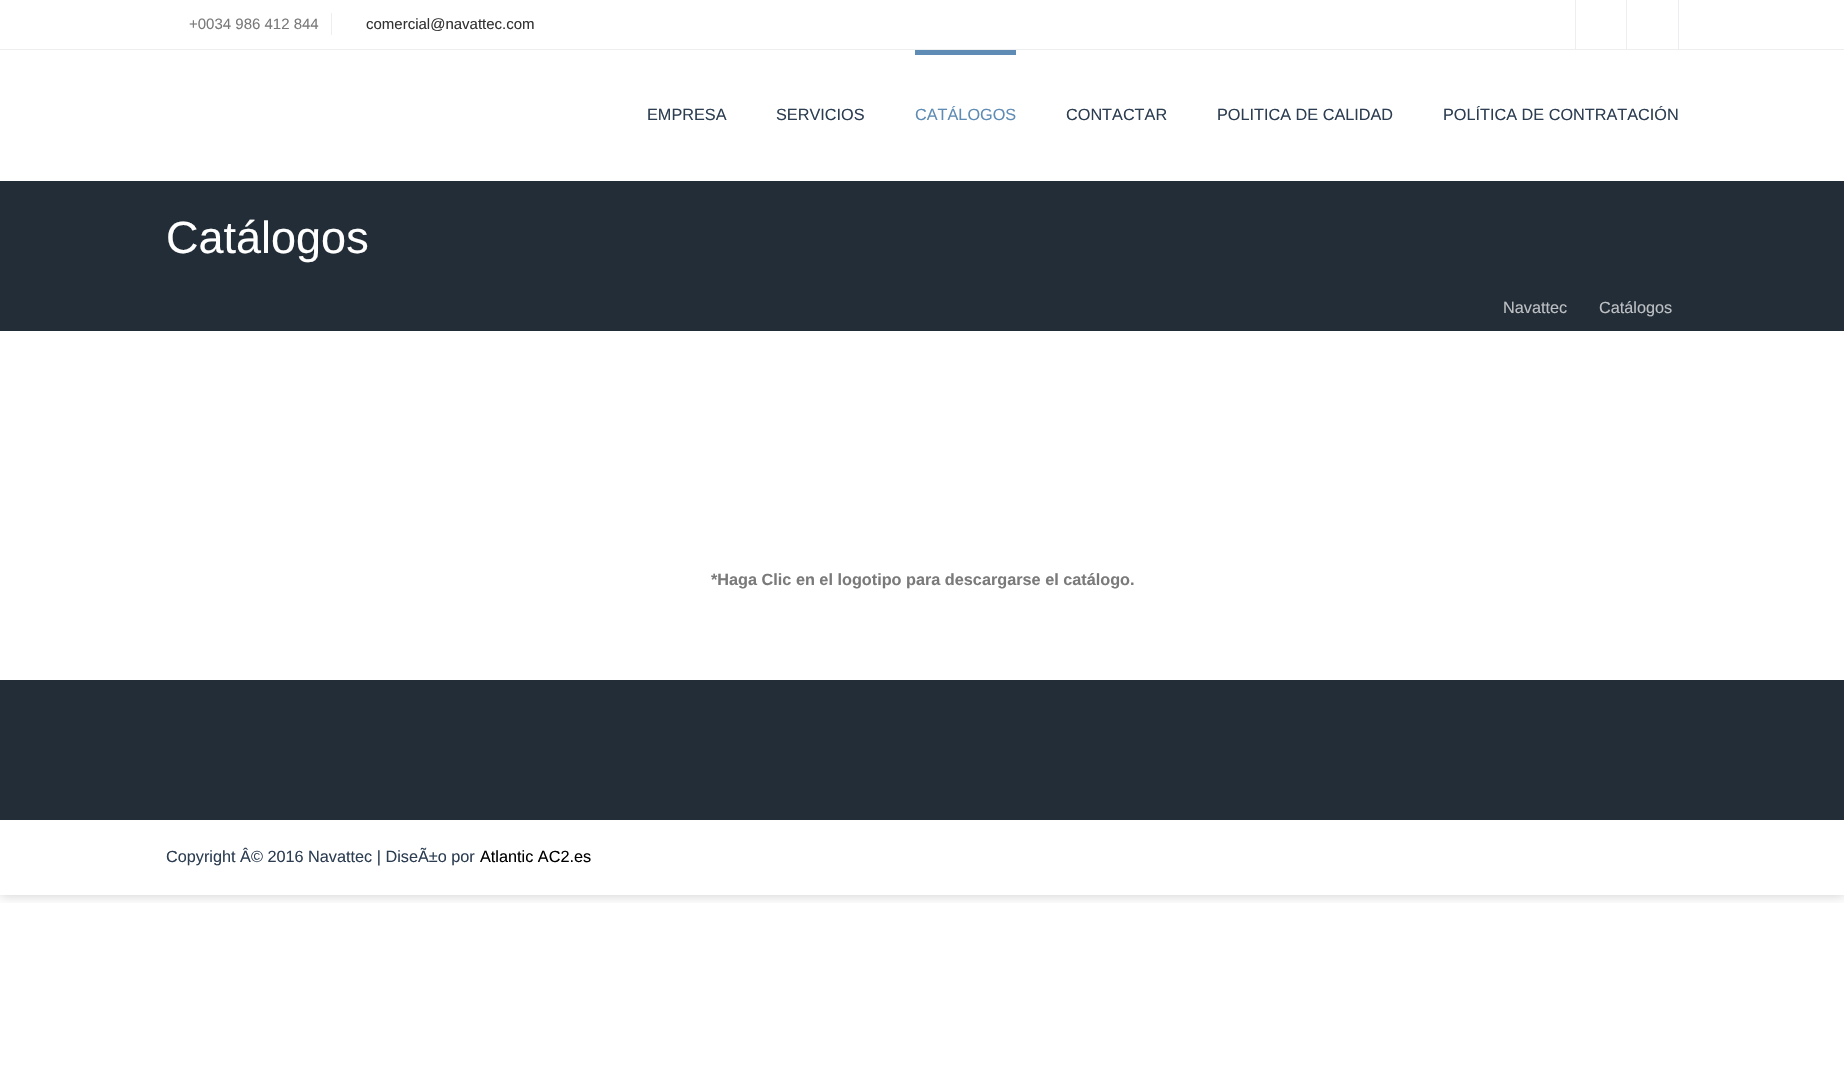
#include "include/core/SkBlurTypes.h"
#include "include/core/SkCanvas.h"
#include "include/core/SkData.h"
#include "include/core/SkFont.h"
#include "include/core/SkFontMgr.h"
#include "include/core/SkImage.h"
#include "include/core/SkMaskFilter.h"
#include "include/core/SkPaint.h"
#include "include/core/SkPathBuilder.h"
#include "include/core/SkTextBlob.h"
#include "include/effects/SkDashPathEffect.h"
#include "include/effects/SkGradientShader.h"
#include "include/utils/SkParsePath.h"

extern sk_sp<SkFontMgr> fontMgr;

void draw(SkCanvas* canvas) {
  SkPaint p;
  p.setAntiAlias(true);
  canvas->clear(SK_ColorWHITE);
  canvas->save();
  canvas->clipRect(SkRect::MakeLTRB(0, 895, 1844, 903));
  p.setColor(SkColorSetARGB(51, 0, 0, 0));
  p.setMaskFilter(SkMaskFilter::MakeBlur(kNormal_SkBlurStyle, 6));
  canvas->drawRect(SkRect::MakeLTRB(0, -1, 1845, 895), p);
  p.setMaskFilter(nullptr);
  canvas->restore();
  p.setColor(SkColorSetRGB(236, 238, 240));
  canvas->drawRect(SkRect::MakeLTRB(0, 49, 1844, 50), p);
  canvas->drawRect(SkRect::MakeLTRB(331, 13, 332, 35), p);
  canvas->drawRect(SkRect::MakeLTRB(1575, 0, 1576, 49), p);
  canvas->drawRect(SkRect::MakeLTRB(1678, 0, 1679, 49), p);
  canvas->drawRect(SkRect::MakeLTRB(1626, 0, 1627, 49), p);
  p.setColor(SkColorSetRGB(95, 140, 180));
  canvas->drawRect(SkRect::MakeLTRB(915, 50, 1016, 55), p);
  p.setColor(SkColorSetRGB(35, 45, 55));
  canvas->drawRect(SkRect::MakeLTRB(0, 181, 1844, 331), p);
  canvas->drawRect(SkRect::MakeLTRB(0, 680, 1844, 820), p);
  SkFont font1(fontMgr->matchFamilyStyle("Liberation Sans", SkFontStyle::Normal()), 15);
  font1.setSubpixel(true);
  p.setColor(SkColorSetRGB(122, 122, 122));
  canvas->drawString("+0034 986 412 844", 189, 29, font1, p);
  p.setColor(SkColorSetRGB(51, 51, 51));
  canvas->drawString("comercial@navattec.com", 366, 29, font1, p);
  SkFont font2(fontMgr->matchFamilyStyle("Liberation Sans", SkFontStyle::Normal()), 16.25f);
  font2.setSubpixel(true);
  p.setColor(SkColorSetRGB(45, 62, 82));
  canvas->drawString("EMPRESA", 647, 120, font2, p);
  canvas->drawString("SERVICIOS", 776, 120, font2, p);
  p.setColor(SkColorSetRGB(95, 140, 180));
  canvas->drawString("CATÁLOGOS", 915, 120, font2, p);
  p.setColor(SkColorSetRGB(45, 62, 82));
  canvas->drawString("CONTACTAR", 1066, 120, font2, p);
  canvas->drawString("POLITICA DE CALIDAD", 1217, 120, font2, p);
  canvas->drawString("POLÍTICA DE CONTRATACIÓN", 1443, 120, font2, p);
  SkFont font3(fontMgr->matchFamilyStyle("Liberation Sans", SkFontStyle::Normal()), 45);
  font3.setSubpixel(true);
  p.setColor(SK_ColorWHITE);
  canvas->drawString("Catálogos", 166, 253, font3, p);
  p.setColor(SkColorSetRGB(189, 192, 195));
  canvas->drawString("Navattec", 1503, 313, font2, p);
  canvas->drawString("Catálogos", 1599, 313, font2, p);
  SkFont font4(fontMgr->matchFamilyStyle("Liberation Sans", SkFontStyle::Bold()), 16.25f);
  font4.setSubpixel(true);
  p.setColor(SkColorSetRGB(122, 122, 122));
  canvas->drawString("*Haga Clic en el logotipo para descargarse el catálogo.", 711, 585, font4, p);
  p.setColor(SkColorSetRGB(45, 62, 82));
  canvas->drawString("Copyright Â© 2016 Navattec | DiseÃ±o por", 166, 862, font2, p);
  p.setColor(SK_ColorBLACK);
  canvas->drawString("Atlantic AC2.es", 480, 862, font2, p);
}
